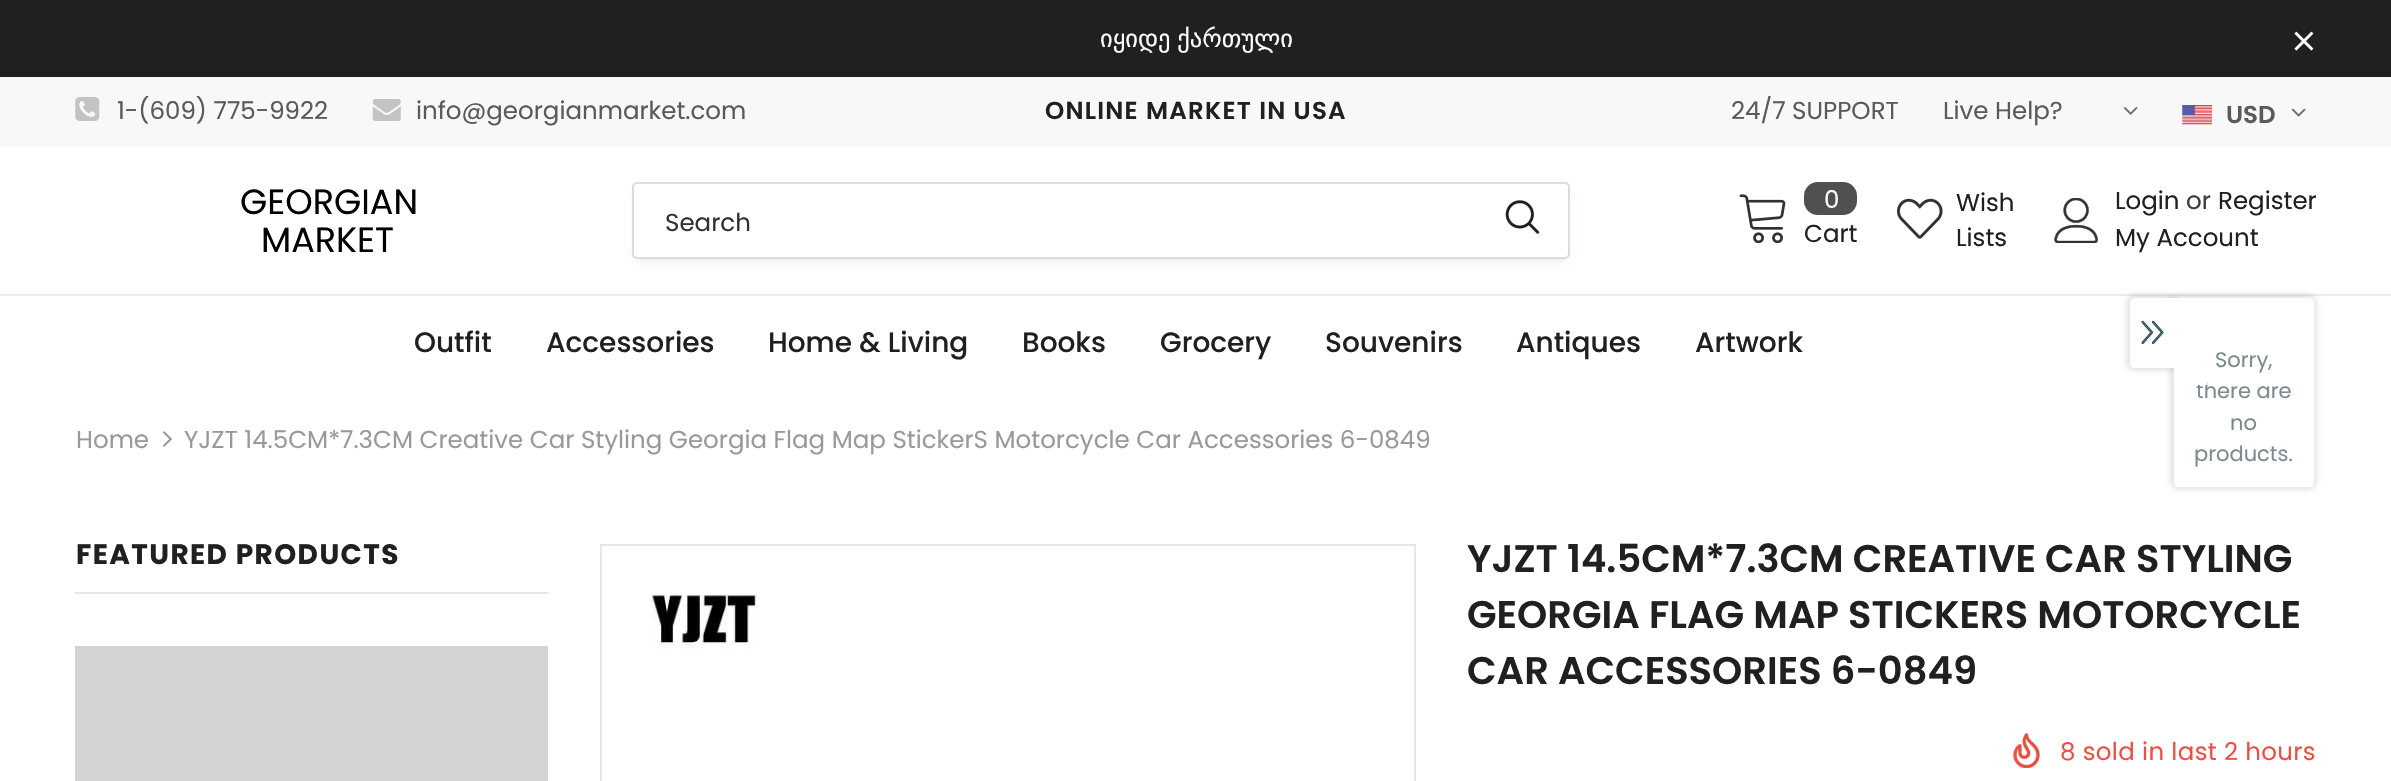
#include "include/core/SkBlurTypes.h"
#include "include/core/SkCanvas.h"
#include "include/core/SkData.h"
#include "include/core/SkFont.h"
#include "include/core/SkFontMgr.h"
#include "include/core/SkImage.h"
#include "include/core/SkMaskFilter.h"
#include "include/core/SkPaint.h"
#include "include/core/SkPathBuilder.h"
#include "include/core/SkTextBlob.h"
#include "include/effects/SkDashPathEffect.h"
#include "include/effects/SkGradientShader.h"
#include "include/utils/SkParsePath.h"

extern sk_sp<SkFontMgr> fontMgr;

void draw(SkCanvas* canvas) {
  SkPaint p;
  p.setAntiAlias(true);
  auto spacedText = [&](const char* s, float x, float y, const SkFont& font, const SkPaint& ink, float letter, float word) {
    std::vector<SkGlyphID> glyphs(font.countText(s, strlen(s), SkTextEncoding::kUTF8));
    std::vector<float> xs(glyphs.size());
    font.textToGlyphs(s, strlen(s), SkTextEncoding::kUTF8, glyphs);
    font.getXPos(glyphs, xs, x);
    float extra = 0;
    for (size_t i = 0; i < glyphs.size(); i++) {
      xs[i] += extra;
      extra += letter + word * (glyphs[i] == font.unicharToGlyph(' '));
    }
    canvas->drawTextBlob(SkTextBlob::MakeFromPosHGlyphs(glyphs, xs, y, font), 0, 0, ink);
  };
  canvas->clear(SK_ColorWHITE);
  p.setColor(SkColorSetRGB(32, 32, 32));
  canvas->drawRect(SkRect::MakeLTRB(0, 0, 2391, 77), p);
  canvas->drawImageRect(SkImages::DeferredFromEncodedData(SkData::MakeFromFileName("images/1.png")), SkRect::MakeLTRB(2294, 31, 2314, 51), SkSamplingOptions());
  p.setColor(SkColorSetRGB(248, 248, 248));
  canvas->drawRect(SkRect::MakeLTRB(0, 77, 2391, 147), p);
  canvas->drawImageRect(SkImages::DeferredFromEncodedData(SkData::MakeFromFileName("images/2.png")), SkRect::MakeLTRB(75, 97, 100, 121), SkSamplingOptions());
  canvas->drawImageRect(SkImages::DeferredFromEncodedData(SkData::MakeFromFileName("images/3.png")), SkRect::MakeLTRB(372, 99, 401, 121), SkSamplingOptions());
  canvas->drawImageRect(SkImages::DeferredFromEncodedData(SkData::MakeFromFileName("images/4.png")), SkRect::MakeLTRB(2123, 107, 2138, 115), SkSamplingOptions());
  canvas->drawImageRect(SkImages::DeferredFromEncodedData(SkData::MakeFromFileName("images/5.png")), SkRect::MakeLTRB(2182, 105, 2212, 125), SkSamplingOptions());
  canvas->drawImageRect(SkImages::DeferredFromEncodedData(SkData::MakeFromFileName("images/6.png")), SkRect::MakeLTRB(2291, 108, 2306, 117), SkSamplingOptions());
  p.setColor(SkColorSetRGB(235, 235, 235));
  canvas->drawRect(SkRect::MakeLTRB(0, 294, 2391, 296), p);
  p.setColor(SkColorSetARGB(31, 0, 0, 0));
  p.setMaskFilter(SkMaskFilter::MakeBlur(kNormal_SkBlurStyle, 4.5f));
  canvas->drawRect(SkRect::MakeLTRB(637, 193, 1565, 259), p);
  p.setMaskFilter(nullptr);
  p.setColor(SK_ColorWHITE);
  canvas->drawRoundRect(SkRect::MakeLTRB(633, 183, 1569, 258), 4, 4, p);
  p.setStyle(SkPaint::kStroke_Style);
  p.setStrokeWidth(2);
  p.setColor(SkColorSetRGB(220, 220, 220));
  canvas->drawRoundRect(SkRect::MakeLTRB(633, 183, 1569, 258), 4, 4, p);
  canvas->drawImageRect(SkImages::DeferredFromEncodedData(SkData::MakeFromFileName("images/7.png")), SkRect::MakeLTRB(1505, 200, 1540, 234), SkSamplingOptions());
  canvas->drawImageRect(SkImages::DeferredFromEncodedData(SkData::MakeFromFileName("images/8.png")), SkRect::MakeLTRB(1739, 194, 1786, 243), SkSamplingOptions());
  p.setStyle(SkPaint::kFill_Style);
  p.setColor(SkColorSetRGB(80, 80, 80));
  canvas->drawRoundRect(SkRect::MakeLTRB(1804, 182, 1857, 215), 14, 14, p);
  canvas->drawImageRect(SkImages::DeferredFromEncodedData(SkData::MakeFromFileName("images/9.png")), SkRect::MakeLTRB(1897, 198, 1943, 239), SkSamplingOptions());
  canvas->drawImageRect(SkImages::DeferredFromEncodedData(SkData::MakeFromFileName("images/10.png")), SkRect::MakeLTRB(2054, 198, 2098, 243), SkSamplingOptions());
  p.setColor(SkColorSetARGB(26, 0, 0, 0));
  p.setMaskFilter(SkMaskFilter::MakeBlur(kNormal_SkBlurStyle, 2.5f));
  canvas->drawRoundRect(SkRect::MakeLTRB(2170, 294, 2317, 490), 9, 9, p);
  p.setMaskFilter(nullptr);
  p.setColor(SK_ColorWHITE);
  canvas->drawPath(SkPathBuilder().moveTo(2174, 298).lineTo(2309, 298).cubicTo(2312, 298, 2314, 300, 2314, 303).lineTo(2314, 482).cubicTo(2314, 485, 2312, 487, 2309, 487).lineTo(2179, 487).cubicTo(2176, 487, 2174, 485, 2174, 482).close().detach(), p);
  p.setColor(SkColorSetARGB(26, 0, 0, 0));
  p.setMaskFilter(SkMaskFilter::MakeBlur(kNormal_SkBlurStyle, 2.5f));
  canvas->drawRoundRect(SkRect::MakeLTRB(2126, 294, 2179, 371), 9, 9, p);
  p.setMaskFilter(nullptr);
  p.setColor(SK_ColorWHITE);
  canvas->drawPath(SkPathBuilder().moveTo(2135, 298).lineTo(2175, 298).lineTo(2175, 368).lineTo(2135, 368).cubicTo(2132, 368, 2130, 366, 2130, 363).lineTo(2130, 303).cubicTo(2130, 300, 2132, 298, 2135, 298).close().detach(), p);
  canvas->drawImageRect(SkImages::DeferredFromEncodedData(SkData::MakeFromFileName("images/11.png")), SkRect::MakeLTRB(2141, 320, 2164, 345), SkSamplingOptions());
  canvas->drawImageRect(SkImages::DeferredFromEncodedData(SkData::MakeFromFileName("images/12.png")), SkRect::MakeLTRB(163, 431, 172, 447), SkSamplingOptions());
  p.setColor(SkColorSetRGB(230, 230, 230));
  canvas->drawRect(SkRect::MakeLTRB(75, 592, 548, 594), p);
  p.setColor(SkColorSetRGB(211, 211, 211));
  canvas->drawRect(SkRect::MakeLTRB(75, 646, 548, 781), p);
  p.setStyle(SkPaint::kStroke_Style);
  p.setColor(SkColorSetRGB(230, 230, 230));
  canvas->drawRect(SkRect::MakeLTRB(601, 545, 1415, 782), p);
  canvas->drawImageRect(SkImages::DeferredFromEncodedData(SkData::MakeFromFileName("images/13.png")), SkRect::MakeLTRB(651, 594, 759, 649), SkSamplingOptions());
  canvas->drawImageRect(SkImages::DeferredFromEncodedData(SkData::MakeFromFileName("images/14.png")), SkRect::MakeLTRB(2013, 733, 2040, 768), SkSamplingOptions());
  SkFont font1(fontMgr->matchFamilyStyle("DejaVu Sans", SkFontStyle::Normal()), 24.5f);
  font1.setSubpixel(true);
  p.setStyle(SkPaint::kFill_Style);
  p.setColor(SK_ColorWHITE);
  spacedText("იყიდე ქართული", 1100, 47, font1, p, 0, -1);
  SkFont font2(fontMgr->matchFamilyStyle("Poppins", SkFontStyle::Normal()), 24.5f);
  font2.setSubpixel(true);
  p.setColor(SkColorSetRGB(90, 90, 90));
  canvas->drawString("1-(609) 775-9922", 117, 119, font2, p);
  canvas->drawString("info@georgianmarket.com", 416, 119, font2, p);
  SkFont font3(fontMgr->matchFamilyStyle("Poppins", SkFontStyle(600, SkFontStyle::kNormal_Width, SkFontStyle::kUpright_Slant)), 24.5f);
  font3.setSubpixel(true);
  p.setColor(SkColorSetRGB(32, 32, 32));
  spacedText("ONLINE MARKET IN USA", 1045, 119, font3, p, 1.25f, 0);
  p.setColor(SkColorSetRGB(90, 90, 90));
  canvas->drawString("24/7 SUPPORT", 1731, 119, font2, p);
  canvas->drawString("Live Help?", 1943, 119, font2, p);
  canvas->drawString("USD", 2226, 123, font3, p);
  SkFont font4(fontMgr->matchFamilyStyle("Poppins", SkFontStyle::Normal()), 35);
  font4.setSubpixel(true);
  p.setColor(SK_ColorBLACK);
  canvas->drawString("GEORGIAN", 240, 214, font4, p);
  canvas->drawString("MARKET", 261, 252, font4, p);
  p.setColor(SkColorSetRGB(50, 50, 50));
  canvas->drawString("Search", 665, 231, font2, p);
  p.setColor(SK_ColorWHITE);
  canvas->drawString("0", 1824, 208, font2, p);
  p.setColor(SkColorSetRGB(32, 32, 32));
  canvas->drawString("Cart", 1804, 242, font2, p);
  canvas->drawString("Wish", 1956, 211, font2, p);
  canvas->drawString("Lists", 1956, 246, font2, p);
  canvas->drawString("Login", 2115, 209, font2, p);
  p.setColor(SkColorSetRGB(60, 60, 60));
  canvas->drawString("or", 2186, 209, font2, p);
  p.setColor(SkColorSetRGB(32, 32, 32));
  canvas->drawString("Register", 2218, 209, font2, p);
  canvas->drawString("My Account", 2115, 246, font2, p);
  SkFont font5(fontMgr->matchFamilyStyle("Poppins", SkFontStyle(500, SkFontStyle::kNormal_Width, SkFontStyle::kUpright_Slant)), 28);
  font5.setSubpixel(true);
  canvas->drawString("Outfit", 414, 352, font5, p);
  canvas->drawString("Accessories", 546, 352, font5, p);
  canvas->drawString("Home & Living", 768, 352, font5, p);
  canvas->drawString("Books", 1022, 352, font5, p);
  canvas->drawString("Grocery", 1160, 352, font5, p);
  canvas->drawString("Souvenirs", 1325, 352, font5, p);
  canvas->drawString("Antiques", 1516, 352, font5, p);
  canvas->drawString("Artwork", 1695, 352, font5, p);
  SkFont font6(fontMgr->matchFamilyStyle("Poppins", SkFontStyle::Normal()), 21);
  font6.setSubpixel(true);
  p.setColor(SkColorSetRGB(125, 139, 142));
  canvas->drawString("Sorry,", 2215, 367, font6, p);
  canvas->drawString("there are", 2196, 398, font6, p);
  p.setColor(SK_ColorWHITE);
  canvas->drawRect(SkRect::MakeLTRB(2174, 298, 2207, 385), p);
  p.setColor(SkColorSetRGB(125, 139, 142));
  canvas->drawString("no", 2230, 430, font6, p);
  canvas->drawString("products.", 2194, 461, font6, p);
  p.setColor(SkColorSetRGB(153, 153, 153));
  canvas->drawString("Home", 76, 448, font2, p);
  canvas->drawString("YJZT 14.5CM*7.3CM Creative Car Styling Georgia Flag Map StickerS Motorcycle Car Accessories 6-0849", 184, 448, font2, p);
  SkFont font7(fontMgr->matchFamilyStyle("Poppins", SkFontStyle::Bold()), 28);
  font7.setSubpixel(true);
  p.setColor(SkColorSetRGB(32, 32, 32));
  spacedText("FEATURED PRODUCTS", 76, 564, font7, p, 1.4f, 0);
  SkFont font8(fontMgr->matchFamilyStyle("Poppins", SkFontStyle(600, SkFontStyle::kNormal_Width, SkFontStyle::kUpright_Slant)), 38.5f);
  font8.setSubpixel(true);
  canvas->drawString("YJZT 14.5CM*7.3CM CREATIVE CAR STYLING", 1467, 572, font8, p);
  canvas->drawString("GEORGIA FLAG MAP STICKERS MOTORCYCLE", 1467, 628, font8, p);
  canvas->drawString("CAR ACCESSORIES 6-0849", 1467, 684, font8, p);
  p.setColor(SkColorSetRGB(233, 81, 68));
  spacedText("8 sold in last 2 hours", 2060, 760, font2, p, 0.35f, 0);
}
